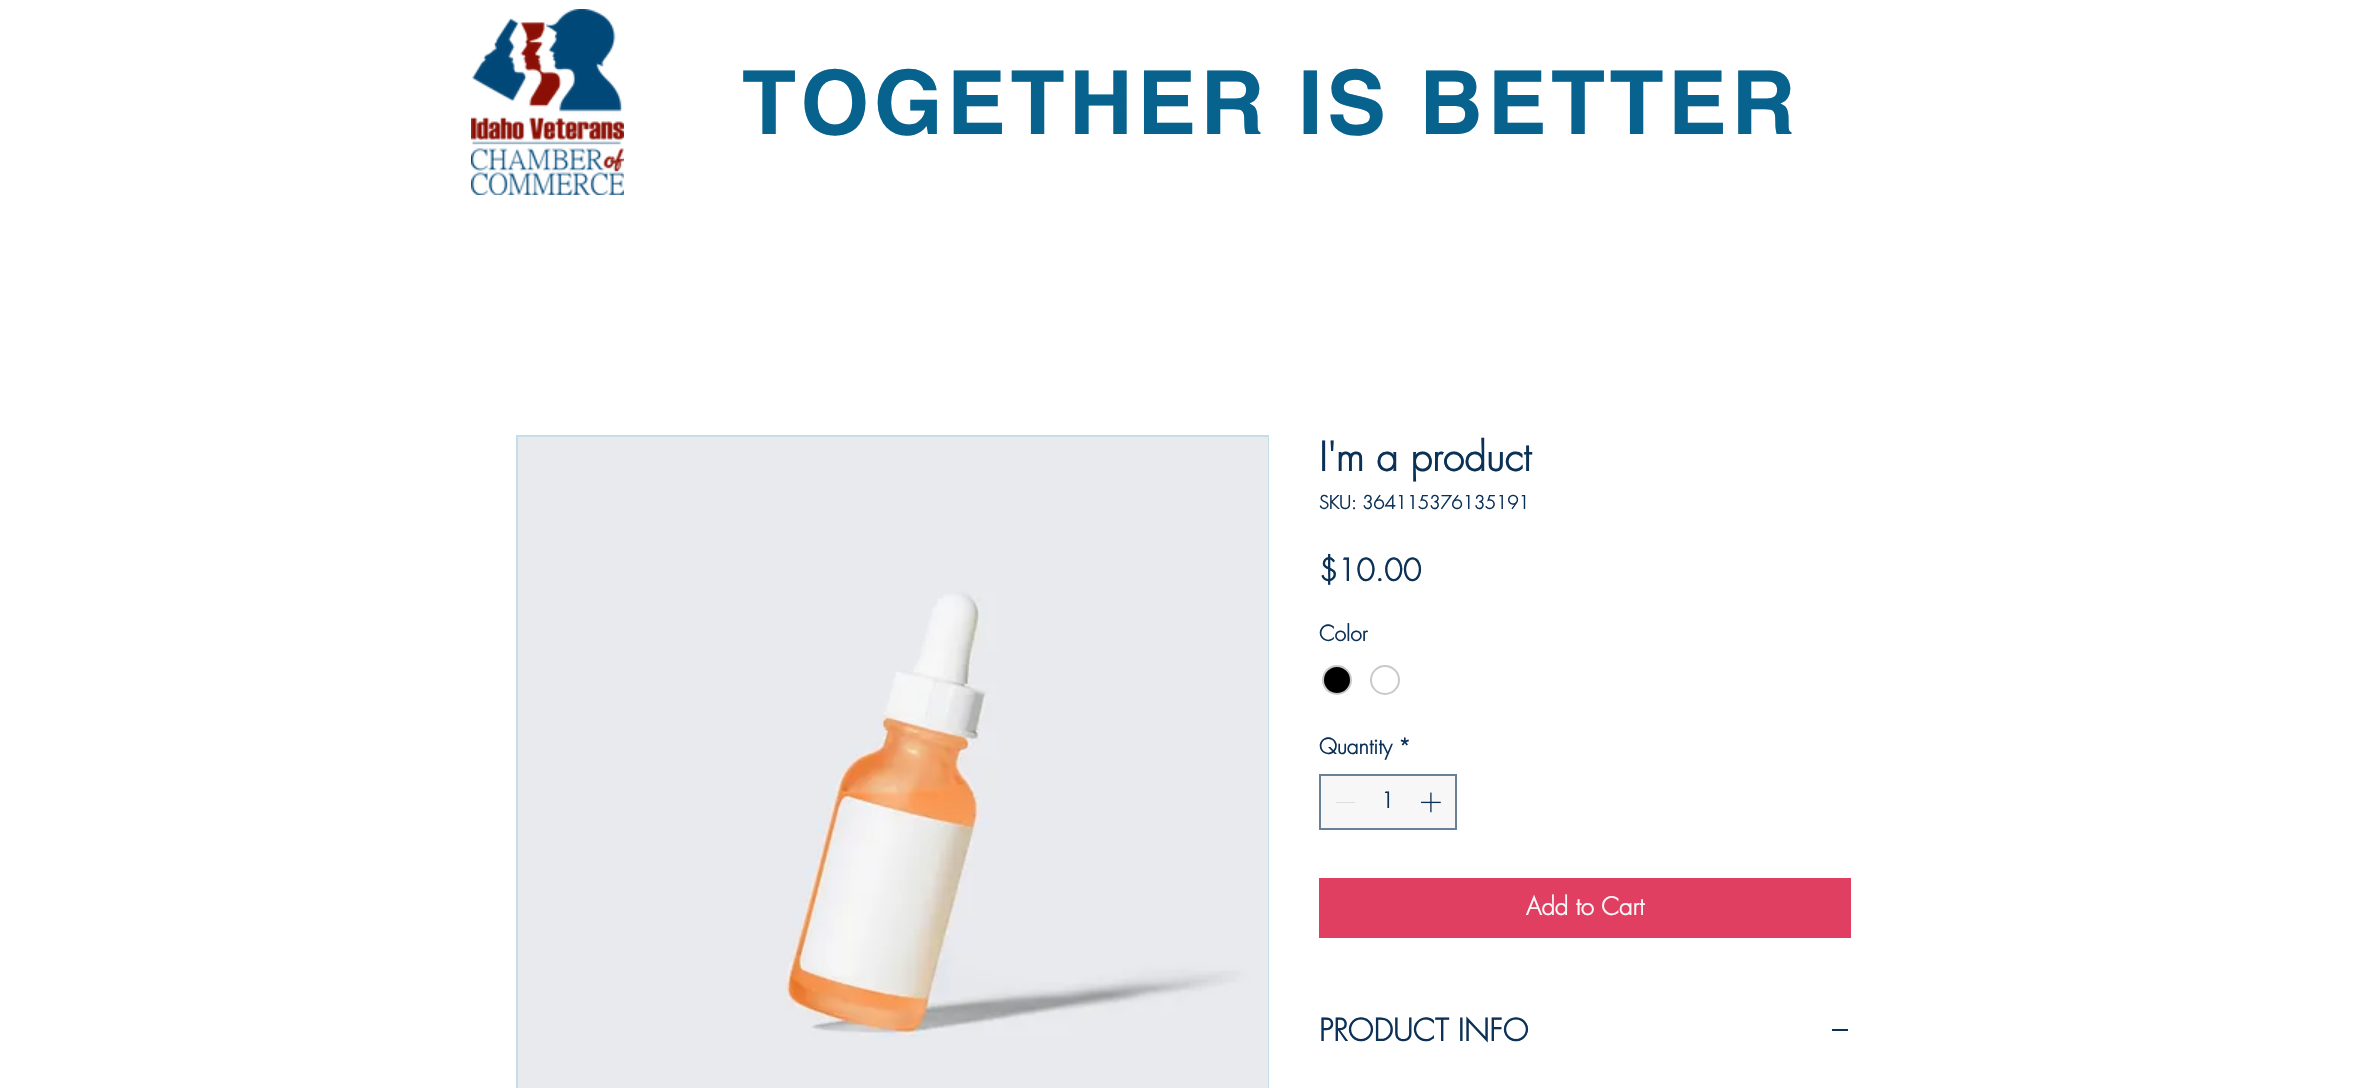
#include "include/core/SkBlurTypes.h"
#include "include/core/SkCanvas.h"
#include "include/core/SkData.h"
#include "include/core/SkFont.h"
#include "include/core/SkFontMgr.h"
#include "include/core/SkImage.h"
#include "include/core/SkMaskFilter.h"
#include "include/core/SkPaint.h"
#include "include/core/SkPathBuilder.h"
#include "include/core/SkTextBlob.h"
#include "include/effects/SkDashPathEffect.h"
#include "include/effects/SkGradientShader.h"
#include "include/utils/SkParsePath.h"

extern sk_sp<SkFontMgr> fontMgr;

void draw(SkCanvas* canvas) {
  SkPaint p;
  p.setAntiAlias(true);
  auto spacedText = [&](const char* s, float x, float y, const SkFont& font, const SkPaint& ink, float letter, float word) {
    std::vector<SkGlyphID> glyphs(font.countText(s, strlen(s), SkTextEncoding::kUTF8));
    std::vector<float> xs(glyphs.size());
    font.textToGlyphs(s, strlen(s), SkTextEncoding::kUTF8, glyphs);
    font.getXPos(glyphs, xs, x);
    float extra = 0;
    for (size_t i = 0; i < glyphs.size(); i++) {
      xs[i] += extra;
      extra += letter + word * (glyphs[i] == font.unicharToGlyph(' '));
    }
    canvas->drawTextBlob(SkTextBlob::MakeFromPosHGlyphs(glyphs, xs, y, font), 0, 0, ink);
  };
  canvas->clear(SK_ColorWHITE);
  canvas->drawImageRect(SkImages::DeferredFromEncodedData(SkData::MakeFromFileName("images/1.png")), SkRect::MakeLTRB(471, 9, 624, 195), SkSamplingOptions());
  p.setStyle(SkPaint::kStroke_Style);
  p.setStrokeWidth(2);
  p.setColor(SkColorSetRGB(196, 222, 233));
  canvas->drawRect(SkRect::MakeLTRB(517, 436, 1268, 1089), p);
  canvas->drawImageRect(SkImages::DeferredFromEncodedData(SkData::MakeFromFileName("images/2.png")), SkRect::MakeLTRB(518, 437, 1268, 1088), SkSamplingOptions());
  p.setStyle(SkPaint::kFill_Style);
  p.setColor(SK_ColorBLACK);
  canvas->drawCircle(1337, 680, 14, p);
  p.setStyle(SkPaint::kStroke_Style);
  p.setColor(SkColorSetRGB(201, 201, 201));
  canvas->drawCircle(1337, 680, 14, p);
  canvas->drawCircle(1385, 680, 14, p);
  p.setStyle(SkPaint::kFill_Style);
  p.setColor(SkColorSetRGB(247, 247, 247));
  canvas->drawRect(SkRect::MakeLTRB(1320, 775, 1456, 829), p);
  p.setStyle(SkPaint::kStroke_Style);
  p.setColor(SkColorSetRGB(106, 128, 151));
  canvas->drawRect(SkRect::MakeLTRB(1320, 775, 1456, 829), p);
  p.setStyle(SkPaint::kFill_Style);
  p.setColor(SkColorSetRGB(223, 223, 223));
  canvas->drawRect(SkRect::MakeLTRB(1336, 802, 1355, 803), p);
  canvas->drawImageRect(SkImages::DeferredFromEncodedData(SkData::MakeFromFileName("images/3.png")), SkRect::MakeLTRB(1421, 792, 1441, 813), SkSamplingOptions());
  p.setColor(SkColorSetRGB(224, 63, 98));
  canvas->drawRect(SkRect::MakeLTRB(1319, 878, 1851, 938), p);
  p.setColor(SkColorSetRGB(12, 49, 87));
  canvas->drawRect(SkRect::MakeLTRB(1832, 1029, 1848, 1031), p);
  SkFont font1(fontMgr->matchFamilyStyle("helvetica", SkFontStyle::Bold()), 88.5f);
  font1.setSubpixel(true);
  p.setColor(SkColorSetRGB(8, 98, 142));
  spacedText("TOGETHER IS BETTER", 742, 134, font1, p, 4.4f, 0);
  SkFont font2(fontMgr->matchFamilyStyle("futura", SkFontStyle::Bold()), 39);
  font2.setSubpixel(true);
  p.setColor(SkColorSetRGB(12, 49, 87));
  canvas->drawString("I'm a product", 1319, 471, font2, p);
  SkFont font3(fontMgr->matchFamilyStyle("futura", SkFontStyle::Bold()), 18);
  font3.setSubpixel(true);
  canvas->drawString("SKU: 364115376135191", 1319, 509, font3, p);
  SkFont font4(fontMgr->matchFamilyStyle("futura", SkFontStyle::Bold()), 30);
  font4.setSubpixel(true);
  canvas->drawString("$10.00", 1319, 581, font4, p);
  SkFont font5(fontMgr->matchFamilyStyle("futura", SkFontStyle::Bold()), 21);
  font5.setSubpixel(true);
  canvas->drawString("Color", 1319, 641, font5, p);
  canvas->drawString("Quantity", 1319, 754, font5, p);
  canvas->drawString("*", 1398, 754, font5, p);
  canvas->drawString("1", 1381, 808, font5, p);
  SkFont font6(fontMgr->matchFamilyStyle("futura", SkFontStyle::Bold()), 24);
  font6.setSubpixel(true);
  p.setColor(SkColorSetRGB(247, 247, 247));
  canvas->drawString("Add to Cart", 1526, 915, font6, p);
  p.setColor(SkColorSetRGB(12, 49, 87));
  canvas->drawString("PRODUCT INFO", 1319, 1041, font4, p);
}
